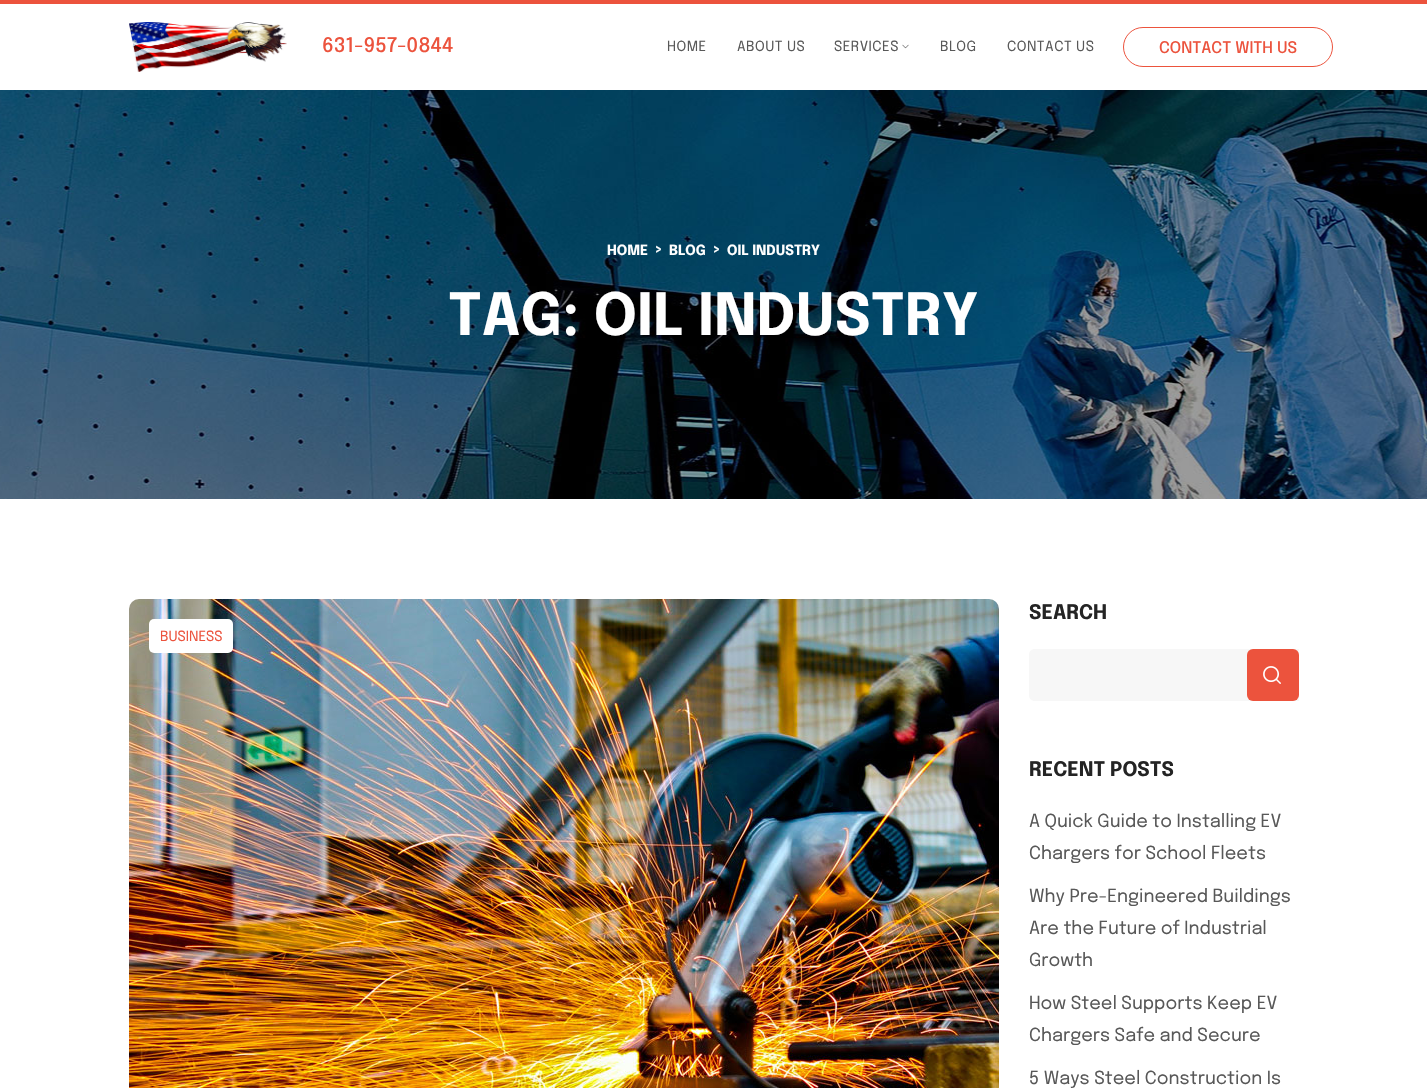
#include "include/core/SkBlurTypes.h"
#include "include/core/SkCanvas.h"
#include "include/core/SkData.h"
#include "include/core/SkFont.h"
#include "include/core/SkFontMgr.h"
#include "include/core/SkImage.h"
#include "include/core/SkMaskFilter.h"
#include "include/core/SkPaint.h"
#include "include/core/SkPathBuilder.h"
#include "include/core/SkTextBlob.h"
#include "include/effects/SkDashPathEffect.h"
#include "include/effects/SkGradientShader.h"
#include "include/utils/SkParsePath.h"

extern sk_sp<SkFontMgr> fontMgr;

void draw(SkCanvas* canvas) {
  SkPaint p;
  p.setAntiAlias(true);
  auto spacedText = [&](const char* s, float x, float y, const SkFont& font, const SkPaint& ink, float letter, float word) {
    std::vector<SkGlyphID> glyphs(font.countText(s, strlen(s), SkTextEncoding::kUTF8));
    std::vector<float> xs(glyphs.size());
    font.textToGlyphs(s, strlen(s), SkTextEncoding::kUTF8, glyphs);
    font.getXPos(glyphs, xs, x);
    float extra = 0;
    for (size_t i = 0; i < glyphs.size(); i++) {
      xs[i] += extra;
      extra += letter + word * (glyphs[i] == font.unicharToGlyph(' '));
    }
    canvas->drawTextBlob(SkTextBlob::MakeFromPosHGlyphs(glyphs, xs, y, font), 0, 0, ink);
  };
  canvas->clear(SK_ColorWHITE);
  p.setColor(SkColorSetRGB(236, 83, 61));
  canvas->drawRect(SkRect::MakeLTRB(0, 0, 1427, 4), p);
  canvas->drawImageRect(SkImages::DeferredFromEncodedData(SkData::MakeFromFileName("images/1.png")), SkRect::MakeLTRB(129, 22, 287, 72), SkSamplingOptions());
  canvas->drawImageRect(SkImages::DeferredFromEncodedData(SkData::MakeFromFileName("images/2.png")), SkRect::MakeLTRB(902, 44, 909, 49), SkSamplingOptions());
  p.setStyle(SkPaint::kStroke_Style);
  p.setStrokeWidth(1);
  canvas->drawRoundRect(SkRect::MakeLTRB(1123.5f, 27.5f, 1332.5f, 66.5f), 19.5f, 19.5f, p);
  canvas->drawImageRect(SkImages::DeferredFromEncodedData(SkData::MakeFromFileName("images/3.png")), SkRect::MakeLTRB(0, 90, 1427, 499), SkSamplingOptions());
  canvas->drawImageRect(SkImages::DeferredFromEncodedData(SkData::MakeFromFileName("images/4.png")), SkRect::MakeLTRB(129, 599, 999, 1088), SkSamplingOptions());
  p.setStyle(SkPaint::kFill_Style);
  p.setColor(SK_ColorWHITE);
  canvas->drawRoundRect(SkRect::MakeLTRB(149, 619, 233, 653), 5, 5, p);
  p.setColor(SkColorSetRGB(247, 247, 247));
  canvas->drawPath(SkPathBuilder().moveTo(1035, 649).lineTo(1299, 649).lineTo(1299, 701).lineTo(1035, 701).cubicTo(1031.5f, 701, 1029, 698.5f, 1029, 695).lineTo(1029, 655).cubicTo(1029, 651.5f, 1031.5f, 649, 1035, 649).close().detach(), p);
  p.setColor(SkColorSetRGB(236, 83, 61));
  canvas->drawRoundRect(SkRect::MakeLTRB(1247, 649, 1299, 701), 6, 6, p);
  canvas->drawImageRect(SkImages::DeferredFromEncodedData(SkData::MakeFromFileName("images/5.png")), SkRect::MakeLTRB(1263, 666, 1281, 684), SkSamplingOptions());
  SkFont font1(fontMgr->matchFamilyStyle("Epilogue", SkFontStyle(500, SkFontStyle::kNormal_Width, SkFontStyle::kUpright_Slant)), 20);
  font1.setSubpixel(true);
  canvas->drawString("631-957-0844", 322, 52, font1, p);
  SkFont font2(fontMgr->matchFamilyStyle("Epilogue", SkFontStyle::Normal()), 14);
  font2.setSubpixel(true);
  p.setColor(SkColorSetRGB(88, 88, 88));
  spacedText("HOME", 667, 51, font2, p, 0.5f, 0);
  spacedText("ABOUT US", 737, 51, font2, p, 0.5f, 0);
  spacedText("SERVICES", 834, 51, font2, p, 0.5f, 0);
  spacedText("BLOG", 940, 51, font2, p, 0.5f, 0);
  spacedText("CONTACT US", 1007, 51, font2, p, 0.5f, 0);
  SkFont font3(fontMgr->matchFamilyStyle("Epilogue", SkFontStyle(500, SkFontStyle::kNormal_Width, SkFontStyle::kUpright_Slant)), 16);
  font3.setSubpixel(true);
  p.setColor(SkColorSetRGB(236, 83, 61));
  canvas->drawString("CONTACT WITH US", 1159, 53, font3, p);
  SkFont font4(fontMgr->matchFamilyStyle("Epilogue", SkFontStyle::Bold()), 14);
  font4.setSubpixel(true);
  p.setColor(SK_ColorWHITE);
  canvas->drawString("HOME", 607, 255, font4, p);
  canvas->drawString(">", 654, 253, font4, p);
  canvas->drawString("BLOG", 669, 255, font4, p);
  canvas->drawString(">", 712, 253, font4, p);
  canvas->drawString("OIL INDUSTRY", 727, 255, font4, p);
  SkFont font5(fontMgr->matchFamilyStyle("Epilogue", SkFontStyle::Bold()), 58);
  font5.setSubpixel(true);
  canvas->drawString("TAG: OIL INDUSTRY", 448, 335, font5, p);
  p.setColor(SkColorSetRGB(236, 83, 61));
  canvas->drawString("BUSINESS", 160, 641, font2, p);
  SkFont font6(fontMgr->matchFamilyStyle("Epilogue", SkFontStyle::Bold()), 20);
  font6.setSubpixel(true);
  p.setColor(SkColorSetRGB(36, 36, 36));
  canvas->drawString("SEARCH", 1029, 619, font6, p);
  canvas->drawString("RECENT POSTS", 1029, 776, font6, p);
  SkFont font7(fontMgr->matchFamilyStyle("Epilogue", SkFontStyle::Normal()), 18);
  font7.setSubpixel(true);
  p.setColor(SkColorSetRGB(88, 88, 88));
  canvas->drawString("A Quick Guide to Installing EV", 1029, 827, font7, p);
  canvas->drawString("Chargers for School Fleets", 1029, 859, font7, p);
  canvas->drawString("Why Pre-Engineered Buildings", 1029, 902, font7, p);
  canvas->drawString("Are the Future of Industrial", 1029, 934, font7, p);
  canvas->drawString("Growth", 1029, 966, font7, p);
  canvas->drawString("How Steel Supports Keep EV", 1029, 1009, font7, p);
  canvas->drawString("Chargers Safe and Secure", 1029, 1041, font7, p);
  canvas->drawString("5 Ways Steel Construction Is", 1029, 1084, font7, p);
}
